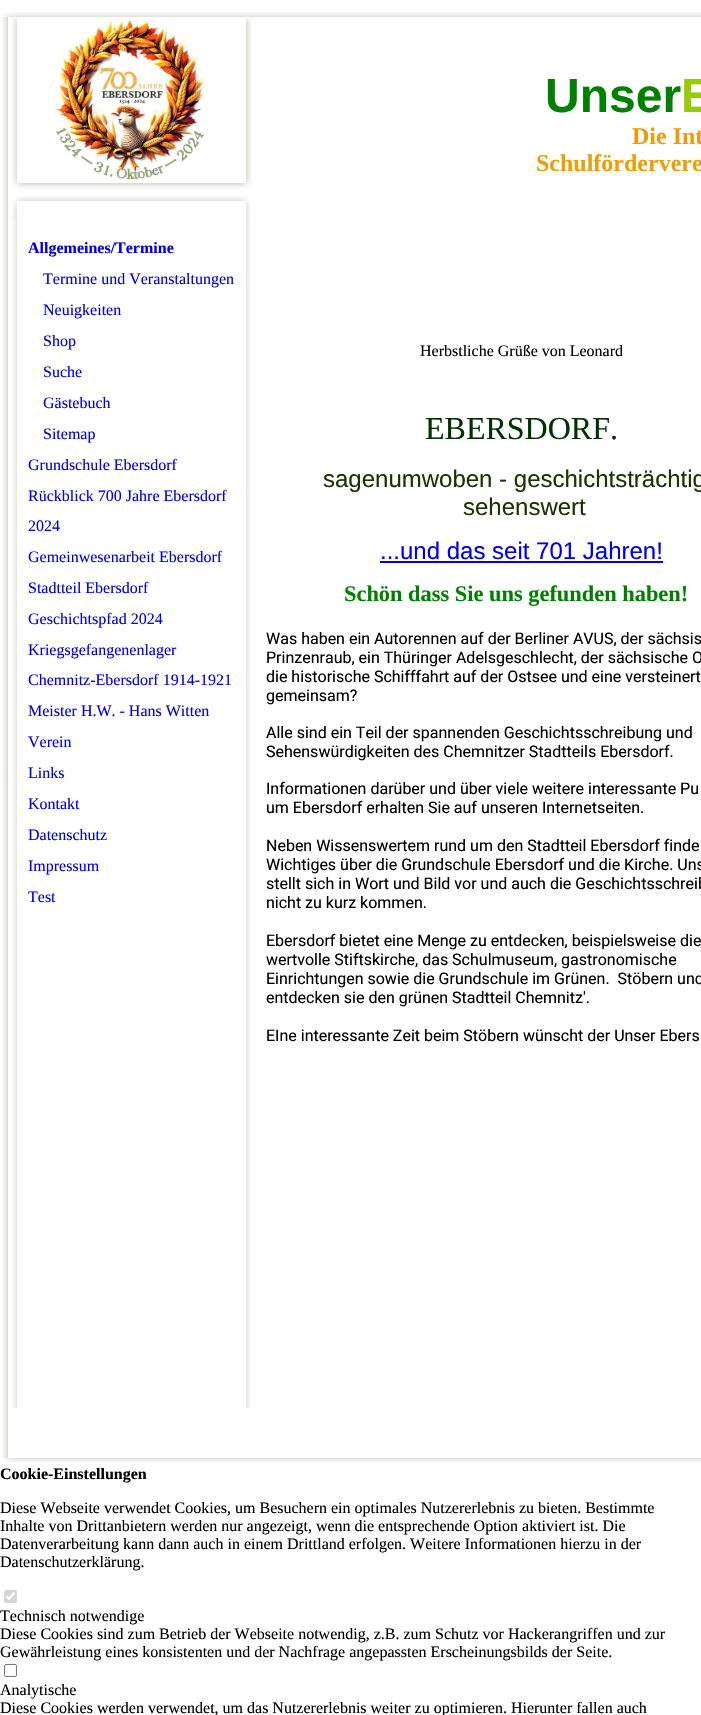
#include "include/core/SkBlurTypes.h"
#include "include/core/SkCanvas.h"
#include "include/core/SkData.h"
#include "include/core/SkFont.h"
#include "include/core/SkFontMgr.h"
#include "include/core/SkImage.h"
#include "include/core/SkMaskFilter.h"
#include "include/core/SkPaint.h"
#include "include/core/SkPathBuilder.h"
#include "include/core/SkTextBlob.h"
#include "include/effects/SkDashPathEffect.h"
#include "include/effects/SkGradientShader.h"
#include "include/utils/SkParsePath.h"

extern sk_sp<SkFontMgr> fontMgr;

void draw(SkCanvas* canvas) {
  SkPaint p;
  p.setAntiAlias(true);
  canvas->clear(SK_ColorWHITE);
  canvas->drawImageRect(SkImages::DeferredFromEncodedData(SkData::MakeFromFileName("images/1.png")), SkRect::MakeLTRB(3, 12, 701, 17), SkSamplingOptions());
  canvas->drawImageRect(SkImages::DeferredFromEncodedData(SkData::MakeFromFileName("images/2.png")), SkRect::MakeLTRB(2, 17, 8, 1458), SkSamplingOptions());
  canvas->drawImageRect(SkImages::DeferredFromEncodedData(SkData::MakeFromFileName("images/3.png")), SkRect::MakeLTRB(11, 18, 252, 189), SkSamplingOptions());
  canvas->drawImageRect(SkImages::DeferredFromEncodedData(SkData::MakeFromFileName("images/4.png")), SkRect::MakeLTRB(55, 19, 207, 179), SkSamplingOptions());
  canvas->drawImageRect(SkImages::DeferredFromEncodedData(SkData::MakeFromFileName("images/5.png")), SkRect::MakeLTRB(12, 196, 251, 221), SkSamplingOptions());
  canvas->drawImageRect(SkImages::DeferredFromEncodedData(SkData::MakeFromFileName("images/6.png")), SkRect::MakeLTRB(12, 221, 17, 1408), SkSamplingOptions());
  canvas->drawImageRect(SkImages::DeferredFromEncodedData(SkData::MakeFromFileName("images/7.png")), SkRect::MakeLTRB(246, 221, 251, 1408), SkSamplingOptions());
  p.setColor(SkColorSetRGB(0, 0, 238));
  canvas->drawRect(SkRect::MakeLTRB(380, 561, 663, 563), p);
  canvas->drawImageRect(SkImages::DeferredFromEncodedData(SkData::MakeFromFileName("images/8.png")), SkRect::MakeLTRB(3, 1458, 701, 1463), SkSamplingOptions());
  p.setColor(SkColorSetRGB(214, 214, 214));
  canvas->drawRoundRect(SkRect::MakeLTRB(4, 1590, 17, 1603), 2, 2, p);
  p.setStyle(SkPaint::kStroke_Style);
  p.setStrokeWidth(2.1f);
  p.setColor(SK_ColorWHITE);
  canvas->drawPath(SkPathBuilder().moveTo(6.5f, 1596.5f).lineTo(9, 1599).lineTo(14.5f, 1592.5f).detach(), p);
  p.setStrokeWidth(1);
  p.setColor(SkColorSetRGB(118, 118, 118));
  canvas->drawRoundRect(SkRect::MakeLTRB(4.5f, 1664.5f, 16.5f, 1676.5f), 1.5f, 1.5f, p);
  SkFont font1(fontMgr->matchFamilyStyle("Liberation Sans", SkFontStyle::Bold()), 48);
  font1.setSubpixel(true);
  p.setStyle(SkPaint::kFill_Style);
  p.setColor(SkColorSetRGB(0, 128, 0));
  canvas->drawString("Unser", 545, 112, font1, p);
  p.setColor(SkColorSetRGB(153, 204, 0));
  canvas->drawString("E", 681, 112, font1, p);
  SkFont font2(fontMgr->matchFamilyStyle("Liberation Serif", SkFontStyle::Bold()), 24);
  font2.setSubpixel(true);
  p.setColor(SkColorSetRGB(235, 158, 6));
  canvas->drawString("Die Int", 632, 144, font2, p);
  canvas->drawString("Schulfördervere", 536, 171, font2, p);
  SkFont font3(fontMgr->matchFamilyStyle("Liberation Serif", SkFontStyle::Bold()), 16);
  font3.setSubpixel(true);
  p.setColor(SkColorSetRGB(0, 0, 238));
  canvas->drawString("Allgemeines/Termine", 28, 253, font3, p);
  SkFont font4(fontMgr->matchFamilyStyle("Liberation Serif", SkFontStyle::Normal()), 16);
  font4.setSubpixel(true);
  canvas->drawString("Termine und Veranstaltungen", 43, 284, font4, p);
  canvas->drawString("Neuigkeiten", 43, 315, font4, p);
  canvas->drawString("Shop", 43, 346, font4, p);
  canvas->drawString("Suche", 43, 377, font4, p);
  canvas->drawString("Gästebuch", 43, 408, font4, p);
  canvas->drawString("Sitemap", 43, 439, font4, p);
  canvas->drawString("Grundschule Ebersdorf", 28, 470, font4, p);
  canvas->drawString("Rückblick 700 Jahre Ebersdorf", 28, 501, font4, p);
  canvas->drawString("2024", 28, 531, font4, p);
  canvas->drawString("Gemeinwesenarbeit Ebersdorf", 28, 562, font4, p);
  canvas->drawString("Stadtteil Ebersdorf", 28, 593, font4, p);
  canvas->drawString("Geschichtspfad 2024", 28, 624, font4, p);
  canvas->drawString("Kriegsgefangenenlager", 28, 655, font4, p);
  canvas->drawString("Chemnitz-Ebersdorf 1914-1921", 28, 685, font4, p);
  canvas->drawString("Meister H.W. - Hans Witten", 28, 716, font4, p);
  canvas->drawString("Verein", 28, 747, font4, p);
  canvas->drawString("Links", 28, 778, font4, p);
  canvas->drawString("Kontakt", 28, 809, font4, p);
  canvas->drawString("Datenschutz", 28, 840, font4, p);
  canvas->drawString("Impressum", 28, 871, font4, p);
  canvas->drawString("Test", 28, 902, font4, p);
  p.setColor(SK_ColorBLACK);
  canvas->drawString("Herbstliche Grüße von Leonard", 420, 356, font4, p);
  SkFont font5(fontMgr->matchFamilyStyle("Liberation Serif", SkFontStyle::Normal()), 32);
  font5.setSubpixel(true);
  p.setColor(SkColorSetRGB(0, 51, 0));
  canvas->drawString("EBERSDORF.", 425, 439, font5, p);
  SkFont font6(fontMgr->matchFamilyStyle("Liberation Sans", SkFontStyle::Normal()), 24);
  font6.setSubpixel(true);
  p.setColor(SkColorSetRGB(26, 51, 0));
  canvas->drawString("sagenumwoben - geschichtsträchtig", 323, 487, font6, p);
  canvas->drawString("sehenswert", 463, 515, font6, p);
  p.setColor(SkColorSetRGB(0, 0, 238));
  canvas->drawString("...und das seit 701 Jahren!", 380, 559, font6, p);
  SkFont font7(fontMgr->matchFamilyStyle("Liberation Serif", SkFontStyle::Bold()), 22.4f);
  font7.setSubpixel(true);
  p.setColor(SkColorSetRGB(0, 128, 0));
  canvas->drawString("Schön dass Sie uns gefunden haben!", 344, 601, font7, p);
  SkFont font8(fontMgr->matchFamilyStyle("Roboto", SkFontStyle::Normal()), 16);
  font8.setSubpixel(true);
  p.setColor(SK_ColorBLACK);
  canvas->drawString("Was haben ein Autorennen auf der Berliner AVUS, der sächsis", 266, 644, font8, p);
  canvas->drawString("Prinzenraub, ein Thüringer Adelsgeschlecht, der sächsische O", 266, 663, font8, p);
  canvas->drawString("die historische Schifffahrt auf der Ostsee und eine versteinert", 266, 682, font8, p);
  canvas->drawString("gemeinsam?", 266, 701, font8, p);
  canvas->drawString("Alle sind ein Teil der spannenden Geschichtsschreibung und", 266, 738, font8, p);
  canvas->drawString("Sehenswürdigkeiten des Chemnitzer Stadtteils Ebersdorf.", 266, 757, font8, p);
  canvas->drawString("Informationen darüber und über viele weitere interessante Pu", 266, 794, font8, p);
  canvas->drawString("um Ebersdorf erhalten Sie auf unseren Internetseiten.", 266, 813, font8, p);
  canvas->drawString("Neben Wissenswertem rund um den Stadtteil Ebersdorf finde", 266, 851, font8, p);
  canvas->drawString("Wichtiges über die Grundschule Ebersdorf und die Kirche. Uns", 266, 870, font8, p);
  canvas->drawString("stellt sich in Wort und Bild vor und auch die Geschichtsschreib", 266, 889, font8, p);
  canvas->drawString("nicht zu kurz kommen.", 266, 908, font8, p);
  canvas->drawString("Ebersdorf bietet eine Menge zu entdecken, beispielsweise die", 266, 946, font8, p);
  canvas->drawString("wertvolle Stiftskirche, das Schulmuseum, gastronomische", 266, 965, font8, p);
  canvas->drawString("Einrichtungen sowie die Grundschule im Grünen.  Stöbern und", 266, 984, font8, p);
  canvas->drawString("entdecken sie den grünen Stadtteil Chemnitz'.", 266, 1003, font8, p);
  canvas->drawString("EIne interessante Zeit beim Stöbern wünscht der Unser Ebers", 266, 1041, font8, p);
  canvas->drawString("Cookie-Einstellungen", 0, 1479, font3, p);
  canvas->drawString("Diese Webseite verwendet Cookies, um Besuchern ein optimales Nutzererlebnis zu bieten. Bestimmte", 0, 1513, font4, p);
  canvas->drawString("Inhalte von Drittanbietern werden nur angezeigt, wenn die entsprechende Option aktiviert ist. Die", 0, 1531, font4, p);
  canvas->drawString("Datenverarbeitung kann dann auch in einem Drittland erfolgen. Weitere Informationen hierzu in der", 0, 1549, font4, p);
  canvas->drawString("Datenschutzerklärung.", 0, 1567, font4, p);
  canvas->drawString("Technisch notwendige", 0, 1621, font4, p);
  canvas->drawString("Diese Cookies sind zum Betrieb der Webseite notwendig, z.B. zum Schutz vor Hackerangriffen und zur", 0, 1639, font4, p);
  canvas->drawString("Gewährleistung eines konsistenten und der Nachfrage angepassten Erscheinungsbilds der Seite.", 0, 1657, font4, p);
  canvas->drawString("Analytische", 0, 1695, font4, p);
  canvas->drawString("Diese Cookies werden verwendet, um das Nutzererlebnis weiter zu optimieren. Hierunter fallen auch", 0, 1713, font4, p);
}
